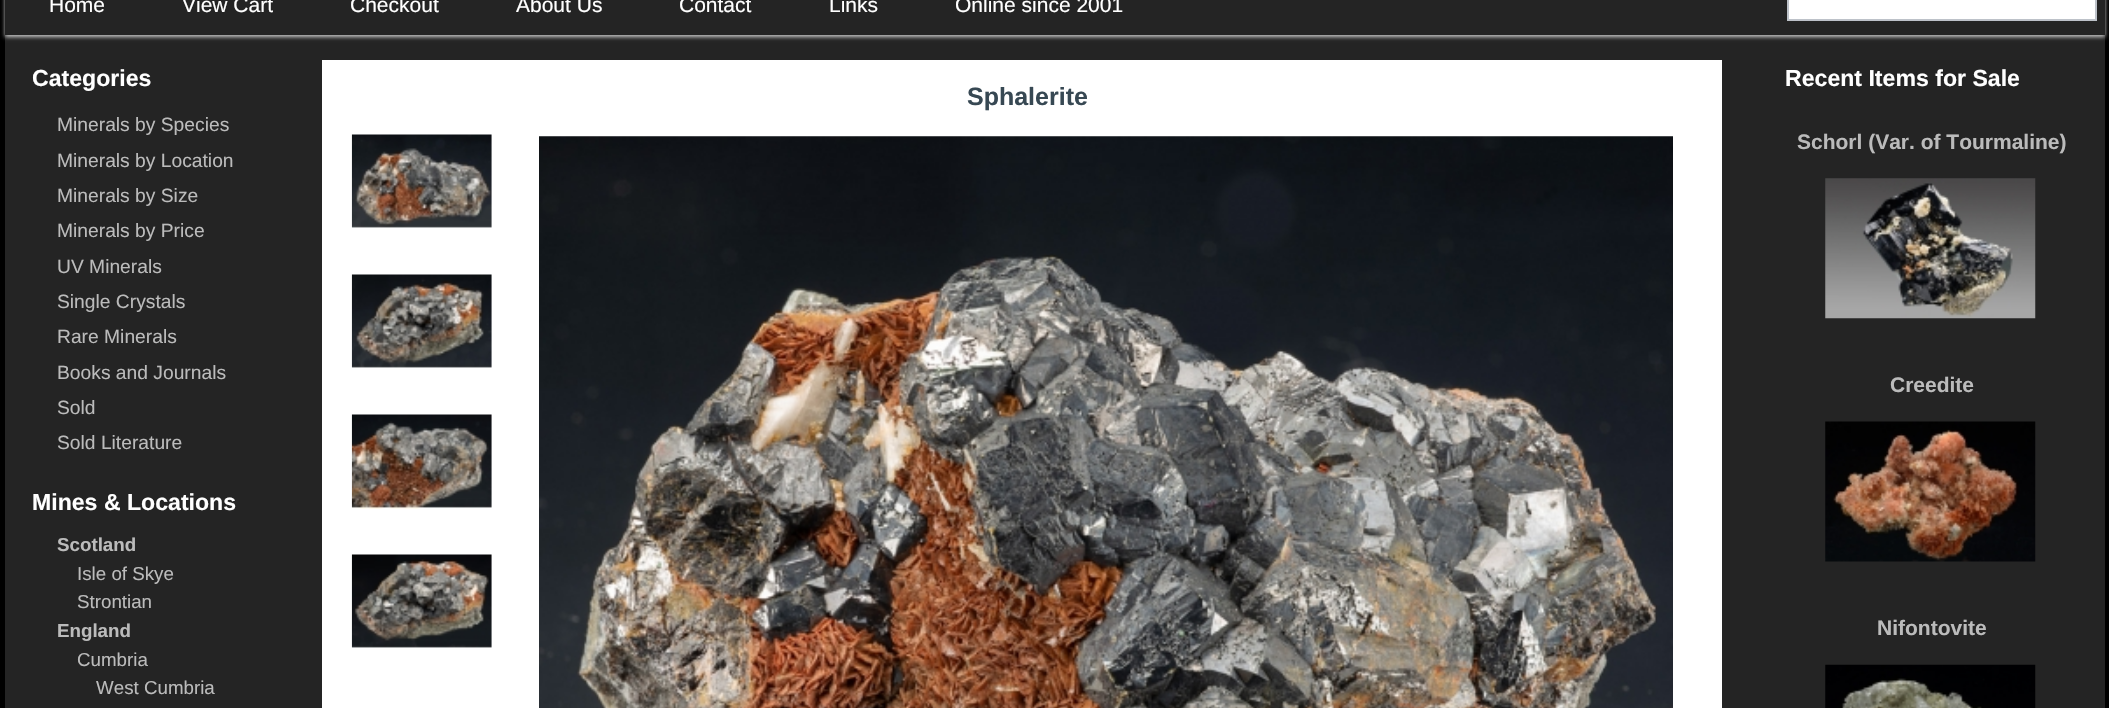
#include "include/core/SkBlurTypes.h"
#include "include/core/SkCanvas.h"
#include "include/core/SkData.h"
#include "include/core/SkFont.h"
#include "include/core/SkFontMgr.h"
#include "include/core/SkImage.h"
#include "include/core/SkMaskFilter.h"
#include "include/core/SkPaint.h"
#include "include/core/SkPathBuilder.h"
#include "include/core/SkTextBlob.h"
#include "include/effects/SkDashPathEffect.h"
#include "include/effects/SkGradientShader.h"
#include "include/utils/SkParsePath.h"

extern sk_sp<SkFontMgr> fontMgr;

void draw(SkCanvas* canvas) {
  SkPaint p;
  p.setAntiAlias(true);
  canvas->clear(SK_ColorBLACK);
  p.setColor(SkColorSetRGB(36, 36, 36));
  canvas->drawRect(SkRect::MakeLTRB(5, 0, 2105, 708), p);
  canvas->save();
  canvas->clipPath(SkPathBuilder(SkPathFillType::kEvenOdd).moveTo(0, 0).lineTo(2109, 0).lineTo(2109, 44).lineTo(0, 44).close().moveTo(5, -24).lineTo(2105, -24).lineTo(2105, 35).lineTo(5, 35).close().detach(), true);
  p.setColor(SkColorSetRGB(198, 198, 198));
  p.setMaskFilter(SkMaskFilter::MakeBlur(kNormal_SkBlurStyle, 2));
  canvas->drawRect(SkRect::MakeLTRB(5, -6, 2105, 37), p);
  p.setMaskFilter(nullptr);
  canvas->restore();
  p.setColor(SK_ColorWHITE);
  canvas->drawRect(SkRect::MakeLTRB(1788, -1, 2096, 20), p);
  p.setStyle(SkPaint::kStroke_Style);
  p.setStrokeWidth(2);
  p.setColor(SkColorSetRGB(189, 194, 201));
  canvas->drawRect(SkRect::MakeLTRB(1788, -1, 2096, 20), p);
  p.setStyle(SkPaint::kFill_Style);
  p.setColor(SK_ColorWHITE);
  canvas->drawRect(SkRect::MakeLTRB(322, 60, 1722, 708), p);
  canvas->drawImageRect(SkImages::DeferredFromEncodedData(SkData::MakeFromFileName("images/1.png")), SkRect::MakeLTRB(351, 134, 492, 228), SkSamplingOptions());
  canvas->drawImageRect(SkImages::DeferredFromEncodedData(SkData::MakeFromFileName("images/2.png")), SkRect::MakeLTRB(351, 274, 492, 368), SkSamplingOptions());
  canvas->drawImageRect(SkImages::DeferredFromEncodedData(SkData::MakeFromFileName("images/3.png")), SkRect::MakeLTRB(351, 414, 492, 509), SkSamplingOptions());
  canvas->drawImageRect(SkImages::DeferredFromEncodedData(SkData::MakeFromFileName("images/4.png")), SkRect::MakeLTRB(351, 554, 492, 648), SkSamplingOptions());
  canvas->drawImageRect(SkImages::DeferredFromEncodedData(SkData::MakeFromFileName("images/5.png")), SkRect::MakeLTRB(539, 136, 1673, 708), SkSamplingOptions());
  canvas->drawImageRect(SkImages::DeferredFromEncodedData(SkData::MakeFromFileName("images/6.png")), SkRect::MakeLTRB(1825, 178, 2036, 319), SkSamplingOptions());
  canvas->drawImageRect(SkImages::DeferredFromEncodedData(SkData::MakeFromFileName("images/7.png")), SkRect::MakeLTRB(1825, 421, 2036, 562), SkSamplingOptions());
  canvas->drawImageRect(SkImages::DeferredFromEncodedData(SkData::MakeFromFileName("images/8.png")), SkRect::MakeLTRB(1825, 664, 2036, 708), SkSamplingOptions());
  SkFont font1(fontMgr->matchFamilyStyle("Liberation Sans", SkFontStyle::Normal()), 21);
  font1.setSubpixel(true);
  canvas->drawString("Home", 49, 12, font1, p);
  canvas->drawString("View Cart", 182, 12, font1, p);
  canvas->drawString("Checkout", 350, 12, font1, p);
  canvas->drawString("About Us", 516, 12, font1, p);
  canvas->drawString("Contact", 679, 12, font1, p);
  canvas->drawString("Links", 829, 12, font1, p);
  canvas->drawString("Online since 2001", 955, 12, font1, p);
  SkFont font2(fontMgr->matchFamilyStyle("Liberation Sans", SkFontStyle::Bold()), 23.1f);
  font2.setSubpixel(true);
  canvas->drawString("Categories", 32, 86, font2, p);
  SkFont font3(fontMgr->matchFamilyStyle("Liberation Sans", SkFontStyle::Normal()), 19.25f);
  font3.setSubpixel(true);
  p.setColor(SkColorSetRGB(187, 187, 187));
  canvas->drawString("Minerals by Species", 57, 131, font3, p);
  canvas->drawString("Minerals by Location", 57, 167, font3, p);
  canvas->drawString("Minerals by Size", 57, 202, font3, p);
  canvas->drawString("Minerals by Price", 57, 237, font3, p);
  canvas->drawString("UV Minerals", 57, 273, font3, p);
  canvas->drawString("Single Crystals", 57, 308, font3, p);
  canvas->drawString("Rare Minerals", 57, 343, font3, p);
  canvas->drawString("Books and Journals", 57, 379, font3, p);
  canvas->drawString("Sold", 57, 414, font3, p);
  canvas->drawString("Sold Literature", 57, 449, font3, p);
  p.setColor(SK_ColorWHITE);
  canvas->drawString("Mines & Locations", 32, 510, font2, p);
  SkFont font4(fontMgr->matchFamilyStyle("Liberation Sans", SkFontStyle::Bold()), 18.75f);
  font4.setSubpixel(true);
  p.setColor(SkColorSetRGB(187, 187, 187));
  canvas->drawString("Scotland", 57, 551, font4, p);
  SkFont font5(fontMgr->matchFamilyStyle("Liberation Sans", SkFontStyle::Normal()), 18.75f);
  font5.setSubpixel(true);
  canvas->drawString("Isle of Skye", 77, 580, font5, p);
  canvas->drawString("Strontian", 77, 608, font5, p);
  canvas->drawString("England", 57, 637, font4, p);
  canvas->drawString("Cumbria", 77, 666, font5, p);
  canvas->drawString("West Cumbria", 96, 694, font5, p);
  SkFont font6(fontMgr->matchFamilyStyle("Liberation Sans", SkFontStyle::Bold()), 25);
  font6.setSubpixel(true);
  p.setColor(SkColorSetRGB(55, 72, 83));
  canvas->drawString("Sphalerite", 967, 105, font6, p);
  p.setColor(SK_ColorWHITE);
  canvas->drawString("Recent Items for Sale", 1785, 86, font2, p);
  SkFont font7(fontMgr->matchFamilyStyle("Liberation Sans", SkFontStyle::Bold()), 21);
  font7.setSubpixel(true);
  p.setColor(SkColorSetRGB(187, 187, 187));
  canvas->drawString("Schorl (Var. of Tourmaline)", 1797, 149, font7, p);
  canvas->drawString("Creedite", 1890, 392, font7, p);
  canvas->drawString("Nifontovite", 1877, 635, font7, p);
}
